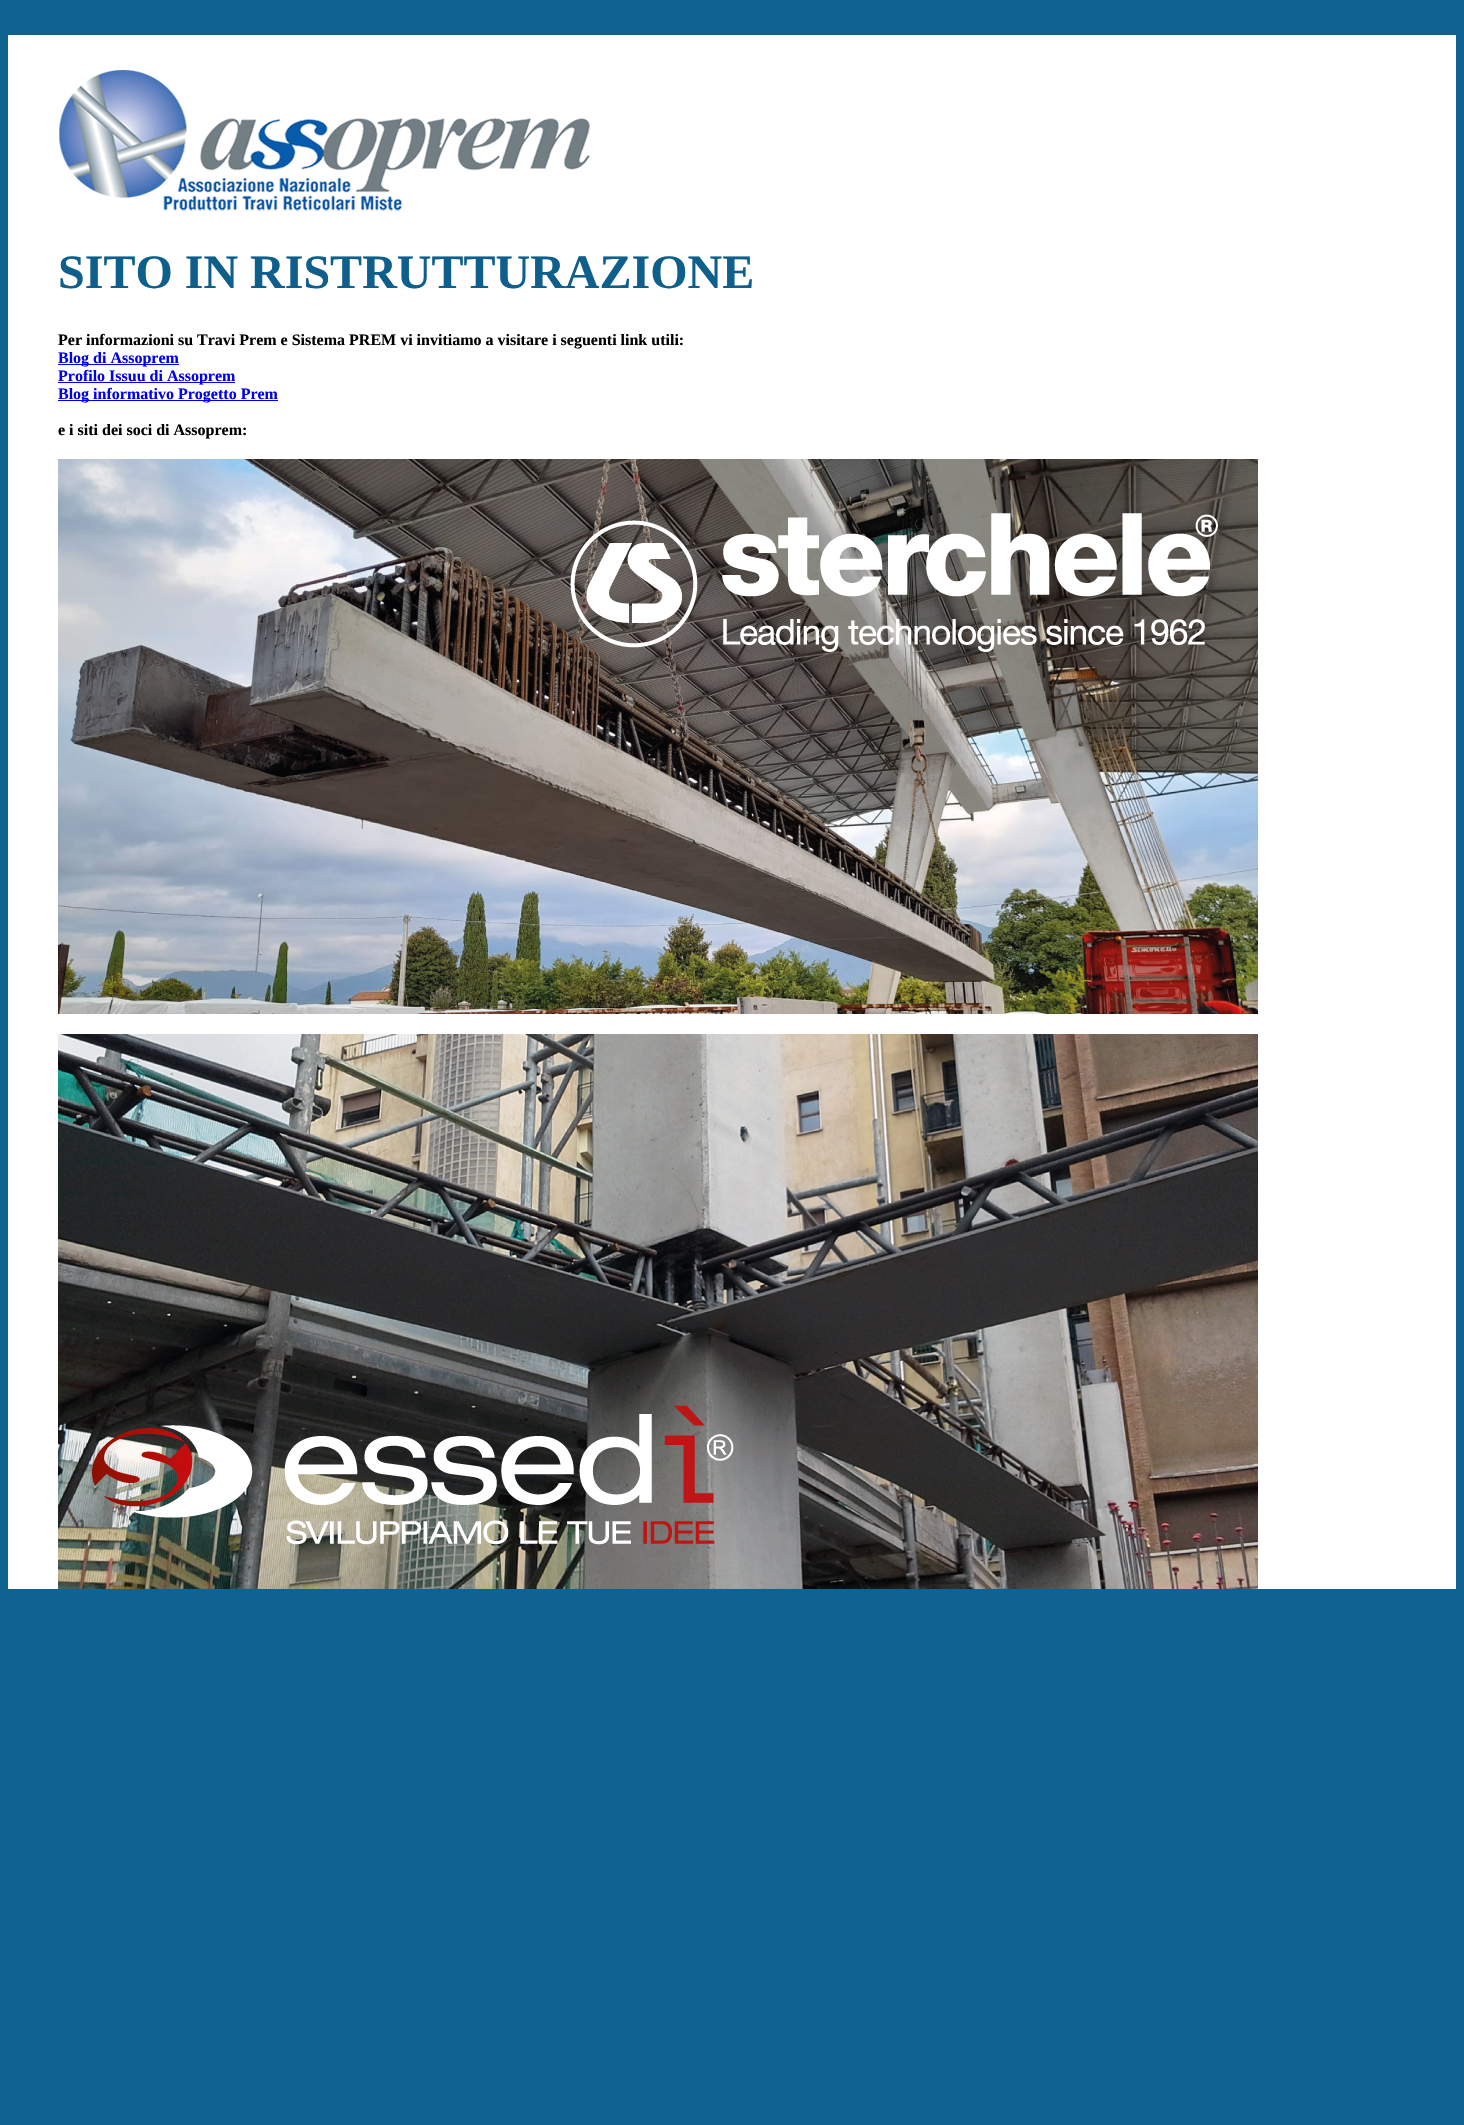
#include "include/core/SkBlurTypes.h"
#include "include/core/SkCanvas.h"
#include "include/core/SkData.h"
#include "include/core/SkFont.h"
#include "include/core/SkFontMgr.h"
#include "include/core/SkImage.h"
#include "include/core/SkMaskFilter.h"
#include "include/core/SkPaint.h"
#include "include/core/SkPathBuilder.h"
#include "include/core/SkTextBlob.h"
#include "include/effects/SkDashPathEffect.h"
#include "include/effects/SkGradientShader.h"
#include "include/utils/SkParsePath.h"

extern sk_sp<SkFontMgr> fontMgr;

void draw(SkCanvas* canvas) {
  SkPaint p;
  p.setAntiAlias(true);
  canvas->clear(SkColorSetRGB(16, 98, 144));
  p.setColor(SK_ColorWHITE);
  canvas->drawRect(SkRect::MakeLTRB(8, 35, 1456, 1589), p);
  canvas->drawImageRect(SkImages::DeferredFromEncodedData(SkData::MakeFromFileName("images/1.png")), SkRect::MakeLTRB(59, 70, 590, 211), SkSamplingOptions());
  p.setColor(SkColorSetRGB(0, 0, 238));
  canvas->drawRect(SkRect::MakeLTRB(58, 364, 179, 365), p);
  canvas->drawRect(SkRect::MakeLTRB(58, 382, 235, 383), p);
  canvas->drawRect(SkRect::MakeLTRB(58, 400, 278, 401), p);
  canvas->drawImageRect(SkImages::DeferredFromEncodedData(SkData::MakeFromFileName("images/2.png")), SkRect::MakeLTRB(58, 459, 1258, 1014), SkSamplingOptions());
  canvas->drawImageRect(SkImages::DeferredFromEncodedData(SkData::MakeFromFileName("images/3.png")), SkRect::MakeLTRB(58, 1034, 1258, 1589), SkSamplingOptions());
  SkFont font1(fontMgr->matchFamilyStyle("Liberation Serif", SkFontStyle::Bold()), 48);
  font1.setSubpixel(true);
  p.setColor(SkColorSetRGB(15, 95, 140));
  canvas->drawString("SITO IN RISTRUTTURAZIONE", 58, 288, font1, p);
  SkFont font2(fontMgr->matchFamilyStyle("Liberation Serif", SkFontStyle::Bold()), 16);
  font2.setSubpixel(true);
  p.setColor(SK_ColorBLACK);
  canvas->drawString("Per informazioni su Travi Prem e Sistema PREM vi invitiamo a visitare i seguenti link utili:", 58, 345, font2, p);
  p.setColor(SkColorSetRGB(0, 0, 238));
  canvas->drawString("Blog di Assoprem", 58, 363, font2, p);
  canvas->drawString("Profilo Issuu di Assoprem", 58, 381, font2, p);
  canvas->drawString("Blog informativo Progetto Prem", 58, 399, font2, p);
  p.setColor(SK_ColorBLACK);
  canvas->drawString("e i siti dei soci di Assoprem:", 58, 435, font2, p);
}
